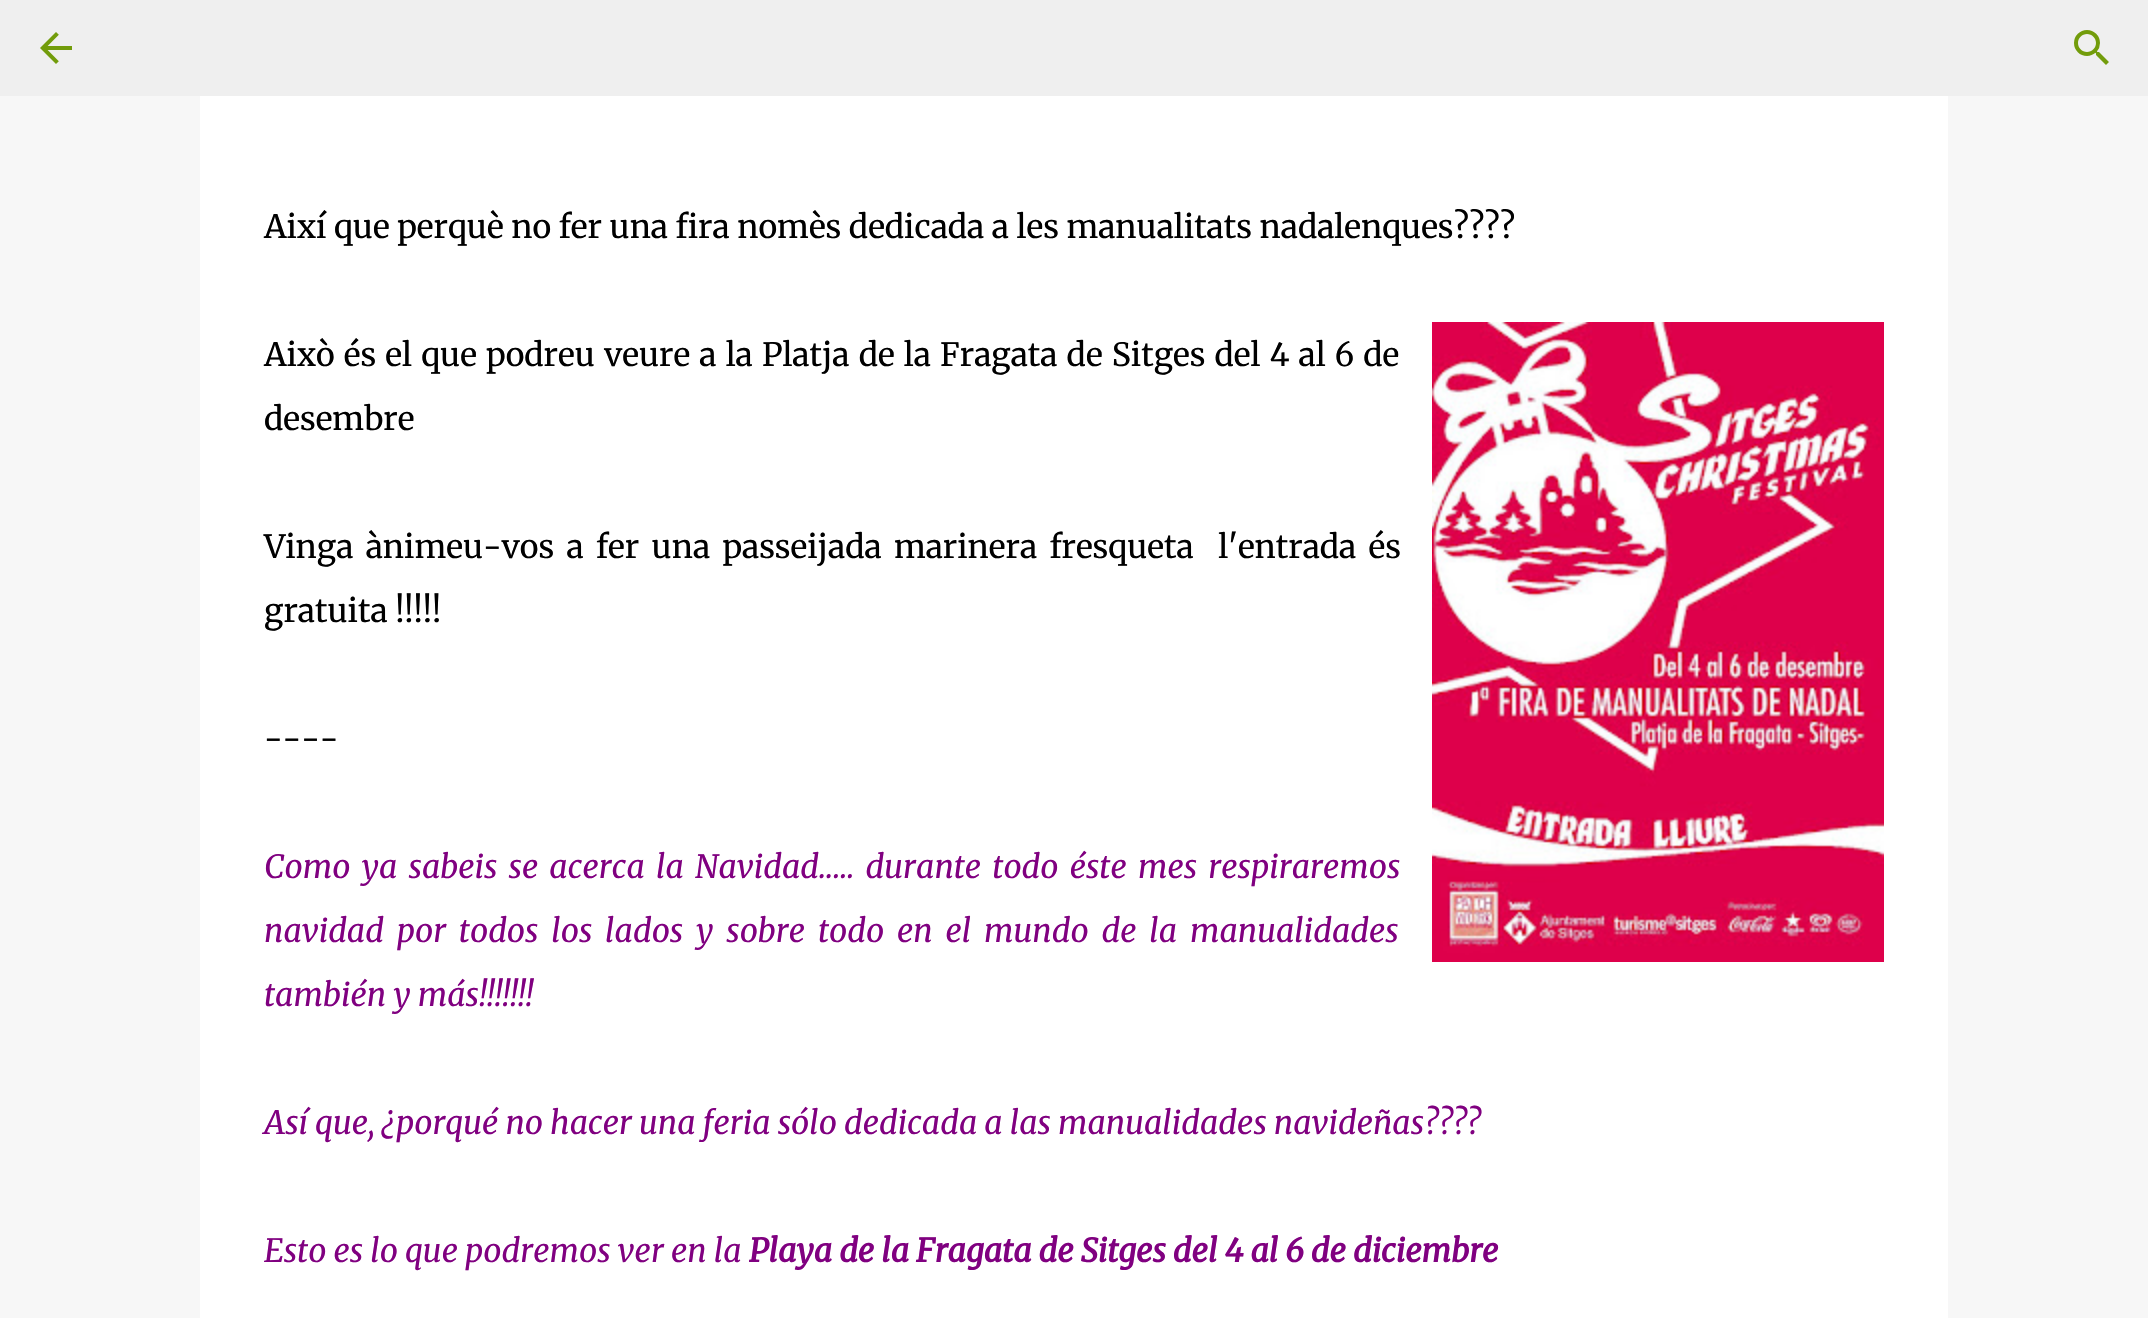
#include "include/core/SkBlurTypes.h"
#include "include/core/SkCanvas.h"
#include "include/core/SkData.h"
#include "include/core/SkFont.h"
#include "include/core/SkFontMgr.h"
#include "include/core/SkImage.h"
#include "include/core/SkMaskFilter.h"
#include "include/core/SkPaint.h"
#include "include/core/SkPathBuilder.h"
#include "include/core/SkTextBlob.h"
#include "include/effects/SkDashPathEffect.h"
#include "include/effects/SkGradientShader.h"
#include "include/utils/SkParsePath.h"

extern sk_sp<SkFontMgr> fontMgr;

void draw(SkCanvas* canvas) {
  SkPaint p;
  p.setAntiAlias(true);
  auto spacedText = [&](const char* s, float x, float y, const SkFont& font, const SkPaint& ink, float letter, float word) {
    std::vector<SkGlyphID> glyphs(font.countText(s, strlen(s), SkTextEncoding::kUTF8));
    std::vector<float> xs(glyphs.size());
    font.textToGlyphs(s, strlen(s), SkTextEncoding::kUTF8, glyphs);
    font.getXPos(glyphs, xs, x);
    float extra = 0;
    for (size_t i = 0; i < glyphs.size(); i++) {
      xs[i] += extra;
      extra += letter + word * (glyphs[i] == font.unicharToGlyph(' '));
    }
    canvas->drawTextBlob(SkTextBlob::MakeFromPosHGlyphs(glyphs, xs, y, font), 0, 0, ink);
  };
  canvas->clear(SkColorSetRGB(247, 247, 247));
  p.setColor(SkColorSetRGB(239, 239, 239));
  canvas->drawRect(SkRect::MakeLTRB(0, 0, 2148, 96), p);
  canvas->drawImageRect(SkImages::DeferredFromEncodedData(SkData::MakeFromFileName("images/1.png")), SkRect::MakeLTRB(40, 32, 72, 64), SkSamplingOptions());
  canvas->drawImageRect(SkImages::DeferredFromEncodedData(SkData::MakeFromFileName("images/2.png")), SkRect::MakeLTRB(2074, 30, 2109, 65), SkSamplingOptions());
  p.setColor(SK_ColorWHITE);
  canvas->drawRect(SkRect::MakeLTRB(200, 96, 1948, 1318), p);
  canvas->drawImageRect(SkImages::DeferredFromEncodedData(SkData::MakeFromFileName("images/3.png")), SkRect::MakeLTRB(1432, 322, 1884, 962), SkSamplingOptions());
  SkFont font1(fontMgr->matchFamilyStyle("Merriweather", SkFontStyle(300, SkFontStyle::kNormal_Width, SkFontStyle::kUpright_Slant)), 32);
  font1.setSubpixel(true);
  p.setColor(SK_ColorBLACK);
  canvas->drawString("Així que perquè no fer una fira nomès dedicada a les manualitats nadalenques?\077?\077", 264, 238, font1, p);
  spacedText("Això és el que podreu veure a la Platja de la Fragata de Sitges del 4 al 6 de", 264, 366, font1, p, 0, 1.6f);
  canvas->drawString("desembre", 264, 430, font1, p);
  spacedText("Vinga ànimeu-vos a fer una passeijada marinera fresqueta  l'entrada és", 264, 558, font1, p, 0, 4.75f);
  canvas->drawString("gratuita !!!!!", 264, 622, font1, p);
  canvas->drawString("----", 264, 750, font1, p);
  SkFont font2(fontMgr->matchFamilyStyle("Merriweather", SkFontStyle::Italic()), 32);
  font2.setSubpixel(true);
  p.setColor(SkColorSetRGB(128, 0, 128));
  spacedText("Como ya sabeis se acerca la Navidad..... durante todo éste mes respiraremos", 264, 878, font2, p, 0, 4.1f);
  spacedText("navidad por todos los lados y sobre todo en el mundo de la manualidades", 264, 942, font2, p, 0, 5.75f);
  canvas->drawString("también y más!!!!!!!", 264, 1006, font2, p);
  canvas->drawString("Así que, ¿porqué no hacer una feria sólo dedicada a las manualidades navideñas?\077?\077", 264, 1134, font2, p);
  canvas->drawString("Esto es lo que podremos ver en la", 264, 1262, font2, p);
  SkFont font3(fontMgr->matchFamilyStyle("Merriweather", SkFontStyle::BoldItalic()), 32);
  font3.setSubpixel(true);
  canvas->drawString("Playa de la Fragata de Sitges del 4 al 6 de diciembre", 749, 1262, font3, p);
}
